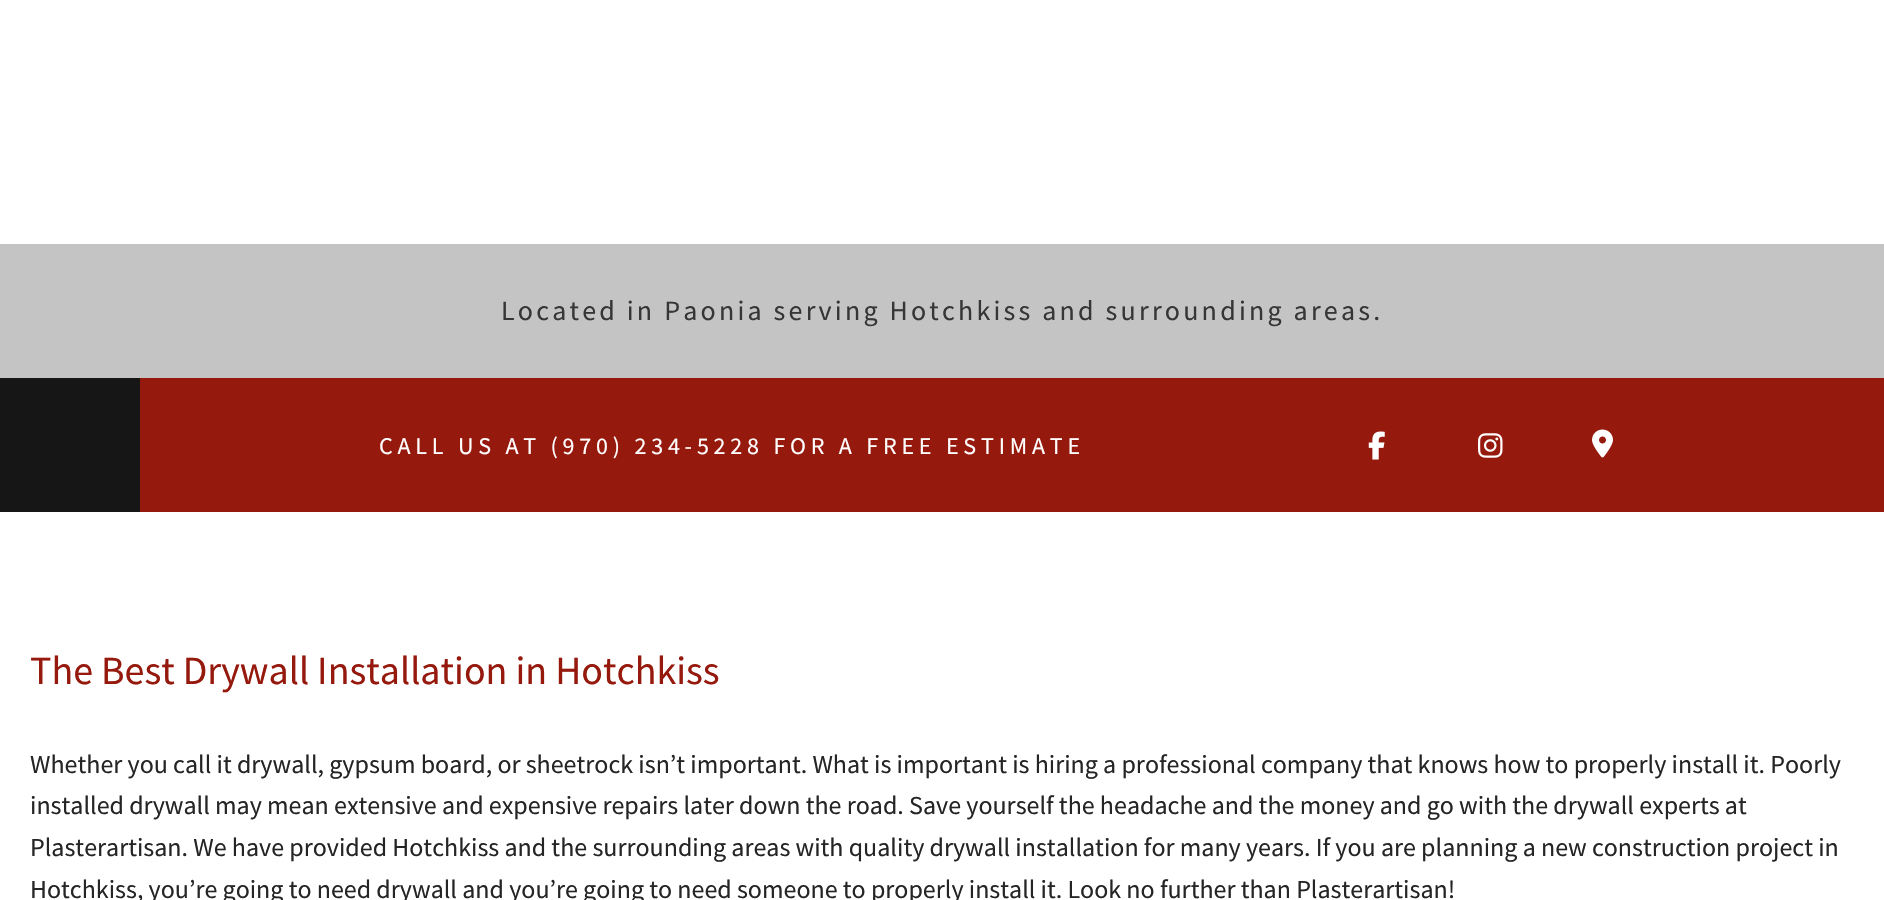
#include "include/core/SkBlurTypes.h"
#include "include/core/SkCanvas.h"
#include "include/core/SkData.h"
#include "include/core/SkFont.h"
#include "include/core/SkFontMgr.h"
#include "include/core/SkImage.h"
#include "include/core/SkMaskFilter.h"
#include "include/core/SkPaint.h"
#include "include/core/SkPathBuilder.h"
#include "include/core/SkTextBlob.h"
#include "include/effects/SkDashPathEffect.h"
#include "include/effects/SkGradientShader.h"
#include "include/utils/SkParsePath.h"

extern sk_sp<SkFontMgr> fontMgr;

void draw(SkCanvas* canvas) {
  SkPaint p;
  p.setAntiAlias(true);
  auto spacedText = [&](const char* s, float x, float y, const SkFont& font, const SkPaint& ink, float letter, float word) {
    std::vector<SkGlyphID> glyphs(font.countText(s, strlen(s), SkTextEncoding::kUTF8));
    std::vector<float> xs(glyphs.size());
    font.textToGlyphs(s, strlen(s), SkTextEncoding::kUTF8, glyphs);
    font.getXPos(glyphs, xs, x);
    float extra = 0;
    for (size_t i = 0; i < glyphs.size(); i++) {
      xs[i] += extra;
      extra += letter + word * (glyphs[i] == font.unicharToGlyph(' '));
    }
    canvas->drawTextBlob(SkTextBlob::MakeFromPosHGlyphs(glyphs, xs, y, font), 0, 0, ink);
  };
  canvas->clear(SK_ColorWHITE);
  p.setColor(SkColorSetRGB(196, 196, 196));
  canvas->drawRect(SkRect::MakeLTRB(0, 244, 1884, 378), p);
  p.setColor(SkColorSetRGB(150, 25, 14));
  canvas->drawRect(SkRect::MakeLTRB(140, 378, 1884, 512), p);
  p.setColor(SkColorSetRGB(22, 22, 22));
  canvas->drawRect(SkRect::MakeLTRB(0, 378, 140, 512), p);
  canvas->drawImageRect(SkImages::DeferredFromEncodedData(SkData::MakeFromFileName("images/1.png")), SkRect::MakeLTRB(1368, 431, 1385, 460), SkSamplingOptions());
  canvas->drawImageRect(SkImages::DeferredFromEncodedData(SkData::MakeFromFileName("images/2.png")), SkRect::MakeLTRB(1478, 433, 1503, 458), SkSamplingOptions());
  canvas->drawImageRect(SkImages::DeferredFromEncodedData(SkData::MakeFromFileName("images/3.png")), SkRect::MakeLTRB(1592, 429, 1613, 458), SkSamplingOptions());
  SkFont font1(fontMgr->matchFamilyStyle("Source Sans Pro", SkFontStyle::Normal()), 28);
  font1.setSubpixel(true);
  p.setColor(SkColorSetRGB(54, 54, 54));
  spacedText("Located in Paonia serving Hotchkiss and surrounding areas.", 501, 320, font1, p, 3.2f, 0);
  SkFont font2(fontMgr->matchFamilyStyle("Source Sans Pro", SkFontStyle::Normal()), 24);
  font2.setSubpixel(true);
  p.setColor(SK_ColorWHITE);
  spacedText("CALL US AT (970) 234-5228 FOR A FREE ESTIMATE", 379, 454, font2, p, 4.8f, 0);
  SkFont font3(fontMgr->matchFamilyStyle("Source Sans Pro", SkFontStyle::Normal()), 40);
  font3.setSubpixel(true);
  p.setColor(SkColorSetRGB(150, 25, 14));
  canvas->drawString("The Best Drywall Installation in Hotchkiss", 30, 684, font3, p);
  SkFont font4(fontMgr->matchFamilyStyle("Source Sans Pro", SkFontStyle::Normal()), 26);
  font4.setSubpixel(true);
  p.setColor(SkColorSetRGB(37, 37, 37));
  canvas->drawString("Whether you call it drywall, gypsum board, or sheetrock isn’t important. What is important is hiring a professional company that knows how to properly install it. Poorly", 30, 773, font4, p);
  canvas->drawString("installed drywall may mean extensive and expensive repairs later down the road. Save yourself the headache and the money and go with the drywall experts at", 30, 814, font4, p);
  canvas->drawString("Plasterartisan. We have provided Hotchkiss and the surrounding areas with quality drywall installation for many years. If you are planning a new construction project in", 30, 856, font4, p);
  canvas->drawString("Hotchkiss, you’re going to need drywall and you’re going to need someone to properly install it. Look no further than Plasterartisan!", 30, 898, font4, p);
}
